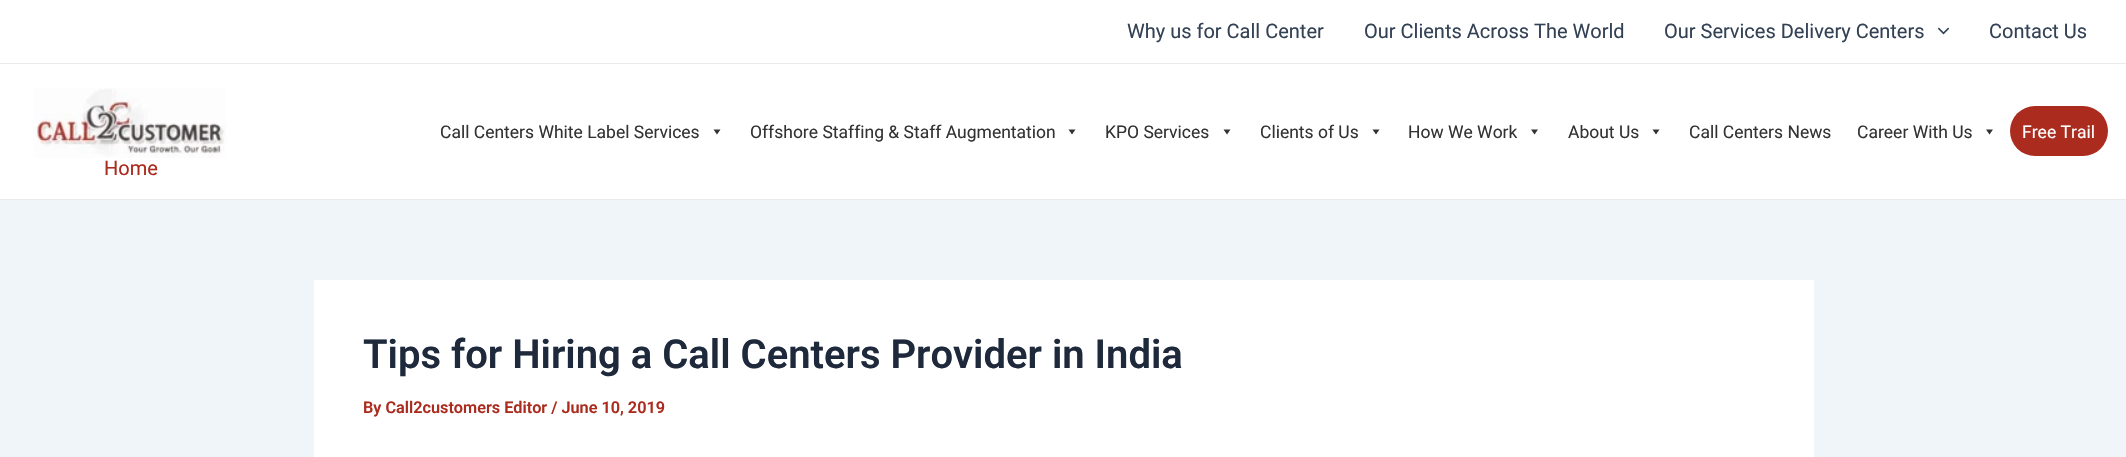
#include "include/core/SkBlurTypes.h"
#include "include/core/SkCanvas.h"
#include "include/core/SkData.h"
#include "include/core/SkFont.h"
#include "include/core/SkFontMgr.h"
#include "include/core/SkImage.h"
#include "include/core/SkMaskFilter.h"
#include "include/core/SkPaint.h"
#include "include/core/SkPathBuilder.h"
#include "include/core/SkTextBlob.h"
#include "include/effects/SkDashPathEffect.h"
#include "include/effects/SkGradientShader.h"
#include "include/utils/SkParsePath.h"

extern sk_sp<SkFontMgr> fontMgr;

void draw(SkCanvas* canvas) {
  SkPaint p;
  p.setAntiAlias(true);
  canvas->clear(SkColorSetRGB(240, 245, 250));
  p.setColor(SK_ColorWHITE);
  canvas->drawRect(SkRect::MakeLTRB(0, 0, 2126, 63), p);
  p.setColor(SkColorSetRGB(234, 234, 234));
  canvas->drawRect(SkRect::MakeLTRB(0, 63, 2126, 64), p);
  canvas->drawImageRect(SkImages::DeferredFromEncodedData(SkData::MakeFromFileName("images/1.png")), SkRect::MakeLTRB(1938, 27, 1949, 35), SkSamplingOptions());
  p.setColor(SK_ColorWHITE);
  canvas->drawRect(SkRect::MakeLTRB(0, 64, 2126, 199), p);
  p.setColor(SkColorSetRGB(234, 234, 234));
  canvas->drawRect(SkRect::MakeLTRB(0, 199, 2126, 200), p);
  p.setColor(SkColorSetRGB(51, 51, 51));
  canvas->drawPath(SkPathBuilder().moveTo(720.5f, 129.5f).lineTo(717, 134.5f).lineTo(713.5f, 129.5f).close().detach(), p);
  canvas->drawPath(SkPathBuilder().moveTo(1075.5f, 129.5f).lineTo(1072, 134.5f).lineTo(1068.5f, 129.5f).close().detach(), p);
  canvas->drawPath(SkPathBuilder().moveTo(1230.5f, 129.5f).lineTo(1227, 134.5f).lineTo(1223.5f, 129.5f).close().detach(), p);
  canvas->drawPath(SkPathBuilder().moveTo(1379.5f, 129.5f).lineTo(1376, 134.5f).lineTo(1372.5f, 129.5f).close().detach(), p);
  canvas->drawPath(SkPathBuilder().moveTo(1538, 129.5f).lineTo(1534.5f, 134.5f).lineTo(1531, 129.5f).close().detach(), p);
  canvas->drawPath(SkPathBuilder().moveTo(1659.5f, 129.5f).lineTo(1656, 134.5f).lineTo(1652.5f, 129.5f).close().detach(), p);
  canvas->drawPath(SkPathBuilder().moveTo(1993, 129.5f).lineTo(1989.5f, 134.5f).lineTo(1986, 129.5f).close().detach(), p);
  p.setColor(SkColorSetRGB(171, 43, 30));
  canvas->drawRoundRect(SkRect::MakeLTRB(2010, 106, 2108, 156), 25, 25, p);
  canvas->drawImageRect(SkImages::DeferredFromEncodedData(SkData::MakeFromFileName("images/2.png")), SkRect::MakeLTRB(33, 88, 226, 158), SkSamplingOptions());
  p.setColor(SK_ColorWHITE);
  canvas->drawRect(SkRect::MakeLTRB(314, 280, 1814, 457), p);
  SkFont font1(fontMgr->matchFamilyStyle("Roboto", SkFontStyle::Normal()), 20);
  font1.setSubpixel(true);
  p.setColor(SkColorSetRGB(51, 65, 85));
  canvas->drawString("Why us for Call Center", 1127, 38, font1, p);
  canvas->drawString("Our Clients Across The World", 1364, 38, font1, p);
  canvas->drawString("Our Services Delivery Centers", 1664, 38, font1, p);
  canvas->drawString("Contact Us", 1989, 38, font1, p);
  SkFont font2(fontMgr->matchFamilyStyle("Roboto", SkFontStyle::Normal()), 17.5f);
  font2.setSubpixel(true);
  p.setColor(SkColorSetRGB(51, 51, 51));
  canvas->drawString("Call Centers White Label Services", 440, 138, font2, p);
  canvas->drawString("Offshore Staffing & Staff Augmentation", 750, 138, font2, p);
  canvas->drawString("KPO Services", 1105, 138, font2, p);
  canvas->drawString("Clients of Us", 1260, 138, font2, p);
  canvas->drawString("How We Work", 1408, 138, font2, p);
  canvas->drawString("About Us", 1568, 138, font2, p);
  canvas->drawString("Call Centers News", 1689, 138, font2, p);
  canvas->drawString("Career With Us", 1857, 138, font2, p);
  p.setColor(SK_ColorWHITE);
  canvas->drawString("Free Trail", 2022, 138, font2, p);
  p.setColor(SkColorSetRGB(171, 43, 30));
  canvas->drawString("Home", 104, 175, font1, p);
  SkFont font3(fontMgr->matchFamilyStyle("Roboto", SkFontStyle(600, SkFontStyle::kNormal_Width, SkFontStyle::kUpright_Slant)), 40);
  font3.setSubpixel(true);
  p.setColor(SkColorSetRGB(30, 41, 59));
  canvas->drawString("Tips for Hiring a Call Centers Provider in India", 363, 368, font3, p);
  SkFont font4(fontMgr->matchFamilyStyle("Roboto", SkFontStyle(600, SkFontStyle::kNormal_Width, SkFontStyle::kUpright_Slant)), 16.25f);
  font4.setSubpixel(true);
  p.setColor(SkColorSetRGB(171, 43, 30));
  canvas->drawString("By Call2customers Editor / June 10, 2019", 363, 413, font4, p);
}
